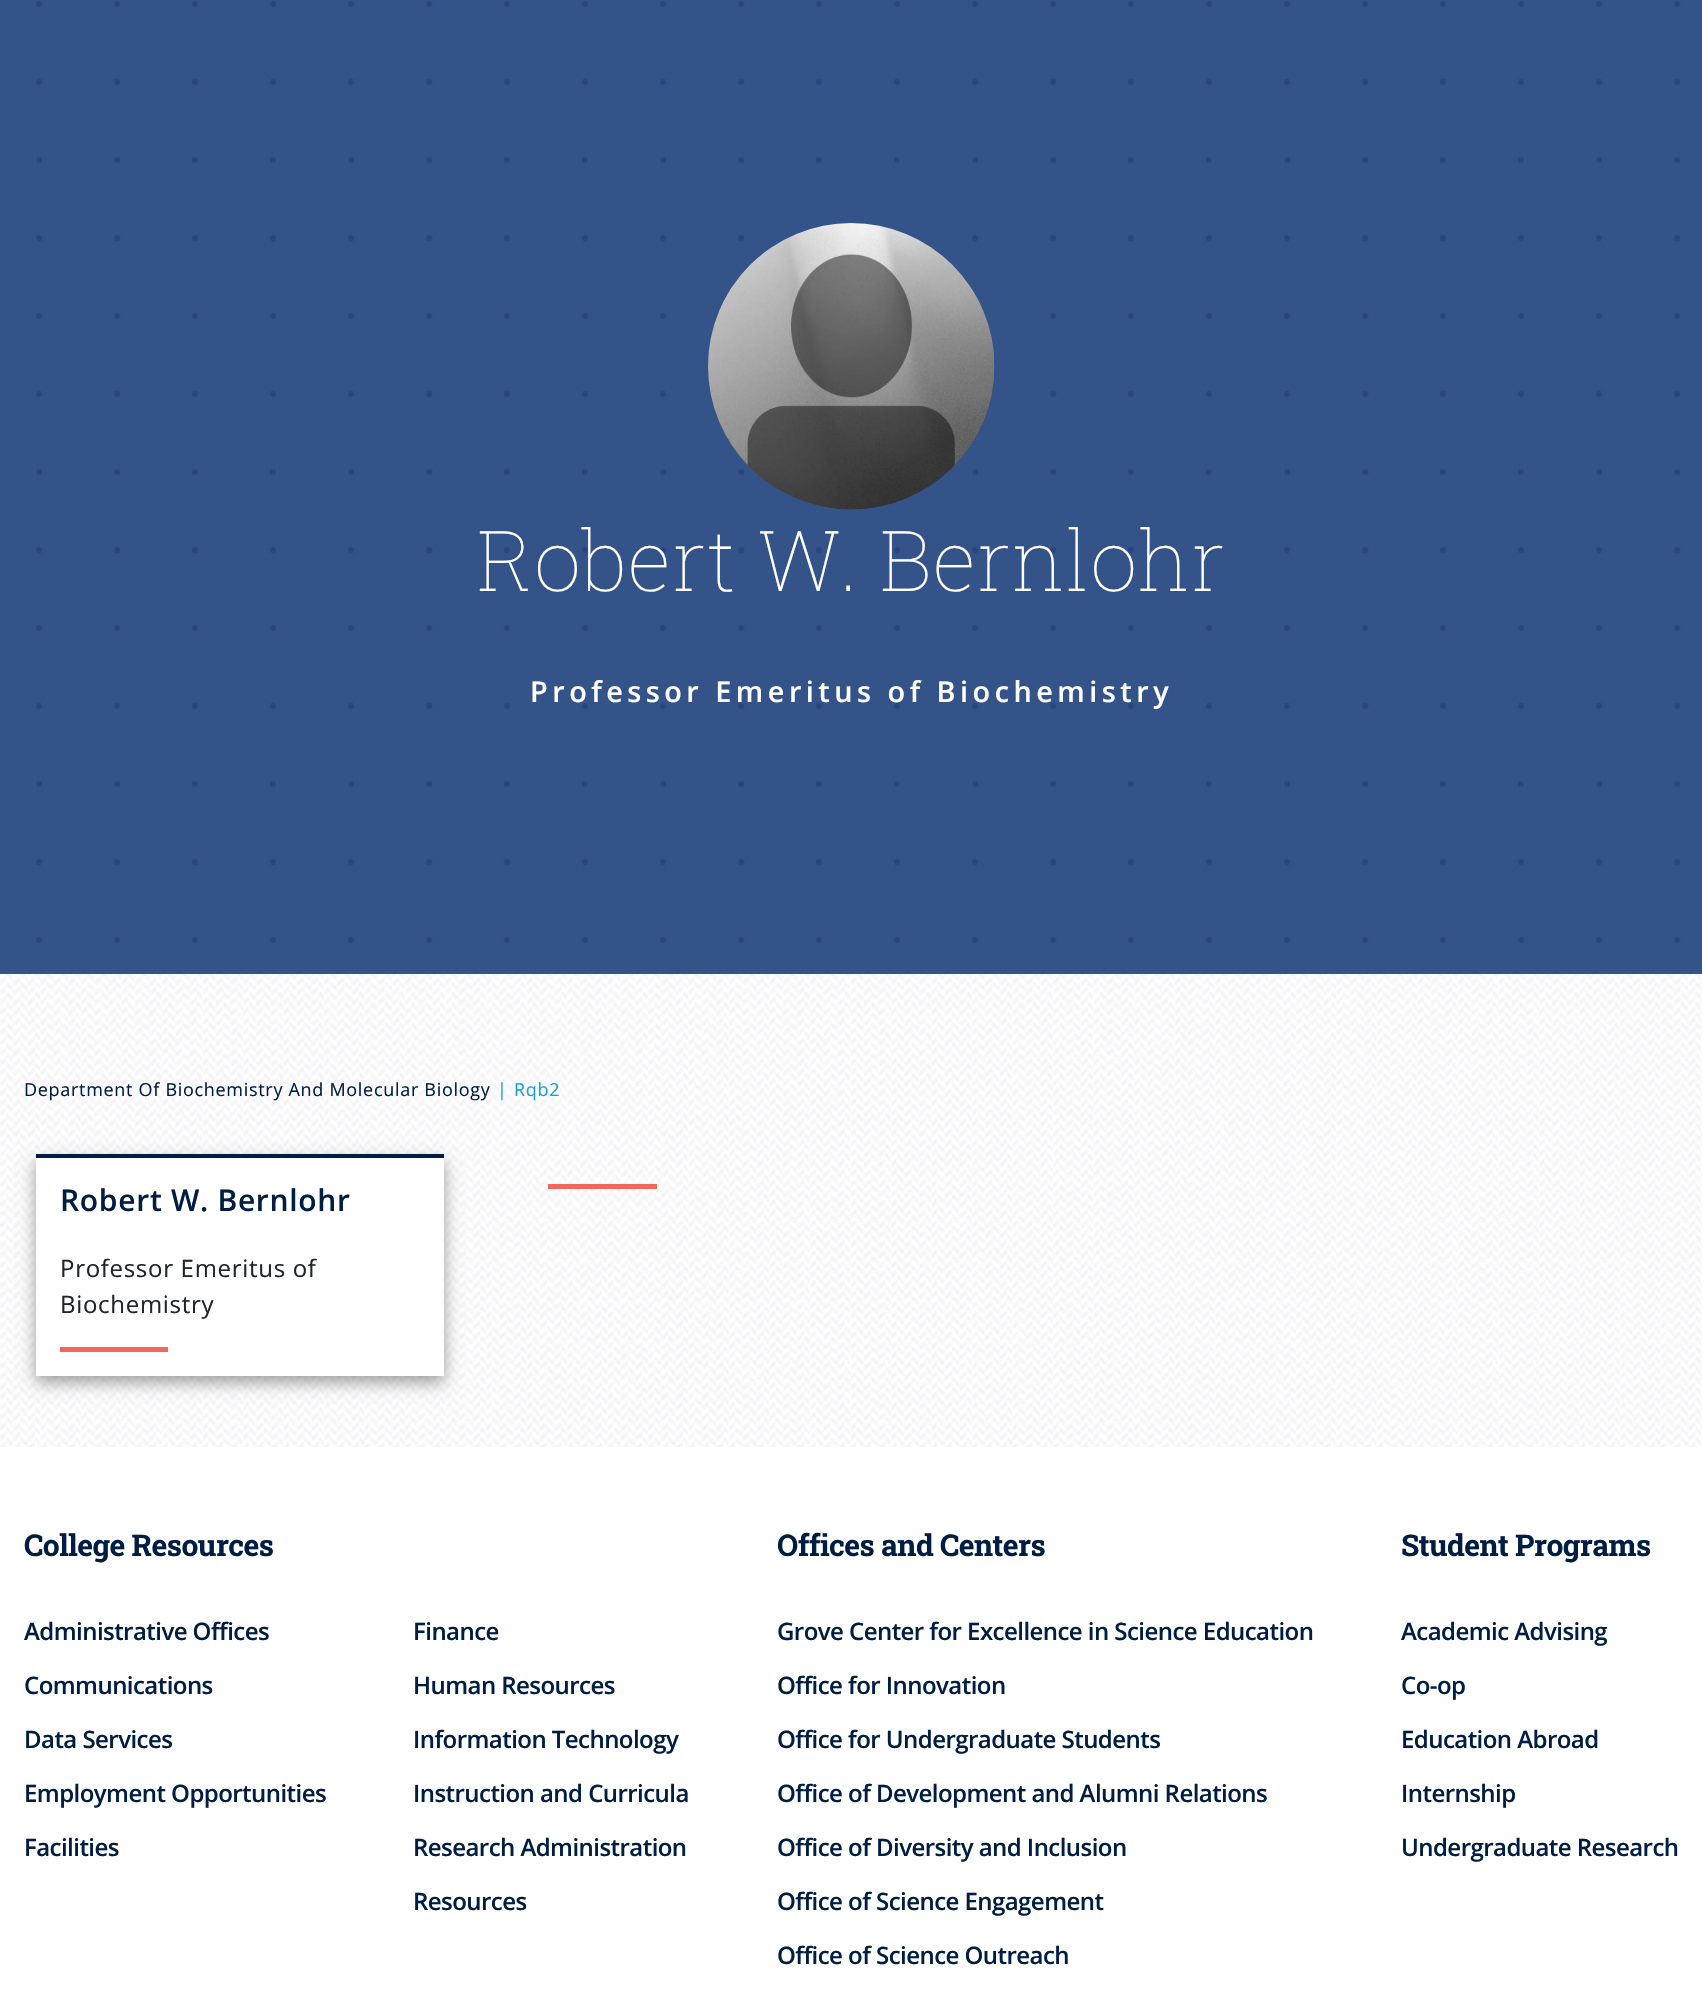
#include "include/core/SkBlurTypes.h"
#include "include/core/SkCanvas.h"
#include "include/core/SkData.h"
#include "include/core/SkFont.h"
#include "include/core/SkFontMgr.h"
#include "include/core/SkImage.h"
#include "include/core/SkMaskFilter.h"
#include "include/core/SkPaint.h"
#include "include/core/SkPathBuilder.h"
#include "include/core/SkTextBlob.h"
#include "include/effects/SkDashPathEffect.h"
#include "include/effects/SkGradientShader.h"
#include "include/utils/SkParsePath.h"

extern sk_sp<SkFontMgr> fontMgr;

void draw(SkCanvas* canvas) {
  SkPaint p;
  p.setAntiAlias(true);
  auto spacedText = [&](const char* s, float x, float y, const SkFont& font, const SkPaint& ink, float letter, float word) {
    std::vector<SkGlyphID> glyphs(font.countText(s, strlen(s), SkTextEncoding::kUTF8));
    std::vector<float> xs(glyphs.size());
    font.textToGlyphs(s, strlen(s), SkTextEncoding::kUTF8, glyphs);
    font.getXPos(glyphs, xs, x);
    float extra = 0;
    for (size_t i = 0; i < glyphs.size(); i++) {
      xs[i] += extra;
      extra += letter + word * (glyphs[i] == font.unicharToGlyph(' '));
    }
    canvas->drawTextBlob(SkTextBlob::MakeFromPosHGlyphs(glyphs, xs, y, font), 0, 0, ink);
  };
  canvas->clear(SK_ColorWHITE);
  canvas->drawImageRect(SkImages::DeferredFromEncodedData(SkData::MakeFromFileName("images/1.png")), SkRect::MakeLTRB(0, 0, 1702, 1447), SkSamplingOptions());
  canvas->drawImageRect(SkImages::DeferredFromEncodedData(SkData::MakeFromFileName("images/2.png")), SkRect::MakeLTRB(35, 0, 1681, 944), SkSamplingOptions());
  p.setColor(SkColorSetARGB(230, 30, 64, 124));
  canvas->drawRect(SkRect::MakeLTRB(0, 0, 1702, 974), p);
  canvas->drawImageRect(SkImages::DeferredFromEncodedData(SkData::MakeFromFileName("images/3.png")), SkRect::MakeLTRB(708, 223, 995, 510), SkSamplingOptions());
  p.setColor(SkColorSetRGB(242, 102, 94));
  canvas->drawRect(SkRect::MakeLTRB(548, 1184, 657, 1189), p);
  p.setColor(SkColorSetARGB(51, 0, 0, 0));
  p.setMaskFilter(SkMaskFilter::MakeBlur(kNormal_SkBlurStyle, 7.5f));
  canvas->drawRect(SkRect::MakeLTRB(36, 1160, 444, 1382), p);
  p.setMaskFilter(nullptr);
  p.setColor(SkColorSetRGB(0, 30, 68));
  canvas->drawRect(SkRect::MakeLTRB(36, 1154, 444, 1158), p);
  p.setColor(SkColorSetARGB(51, 0, 0, 0));
  p.setMaskFilter(SkMaskFilter::MakeBlur(kNormal_SkBlurStyle, 7.5f));
  canvas->drawRect(SkRect::MakeLTRB(36, 1164, 444, 1382), p);
  p.setMaskFilter(nullptr);
  p.setColor(SK_ColorWHITE);
  canvas->drawRect(SkRect::MakeLTRB(36, 1158, 444, 1376), p);
  p.setColor(SkColorSetRGB(242, 102, 94));
  canvas->drawRect(SkRect::MakeLTRB(60, 1347, 168, 1352), p);
  SkFont font1(fontMgr->matchFamilyStyle("Roboto Slab", SkFontStyle(100, SkFontStyle::kNormal_Width, SkFontStyle::kUpright_Slant)), 84);
  font1.setSubpixel(true);
  p.setColor(SK_ColorWHITE);
  spacedText("Robert W. Bernlohr", 477, 591, font1, p, 0.7f, 0);
  SkFont font2(fontMgr->matchFamilyStyle("Open Sans", SkFontStyle(600, SkFontStyle::kNormal_Width, SkFontStyle::kUpright_Slant)), 28.8f);
  font2.setSubpixel(true);
  spacedText("Professor Emeritus of Biochemistry", 530, 702, font2, p, 4.5f, 0);
  SkFont font3(fontMgr->matchFamilyStyle("Open Sans", SkFontStyle::Normal()), 18);
  font3.setSubpixel(true);
  p.setColor(SkColorSetRGB(0, 30, 68));
  spacedText("Department Of Biochemistry And Molecular Biology", 24, 1096, font3, p, 0.7f, 0);
  p.setColor(SkColorSetRGB(25, 157, 219));
  spacedText("|", 497, 1096, font3, p, 0.7f, 0);
  spacedText("Rqb2", 514, 1096, font3, p, 0.7f, 0);
  SkFont font4(fontMgr->matchFamilyStyle("Open Sans", SkFontStyle(600, SkFontStyle::kNormal_Width, SkFontStyle::kUpright_Slant)), 30);
  font4.setSubpixel(true);
  p.setColor(SkColorSetRGB(0, 30, 68));
  spacedText("Robert W. Bernlohr", 60, 1211, font4, p, 0.7f, 0);
  SkFont font5(fontMgr->matchFamilyStyle("Open Sans", SkFontStyle::Normal()), 24);
  font5.setSubpixel(true);
  p.setColor(SkColorSetRGB(33, 37, 41));
  spacedText("Professor Emeritus of", 60, 1277, font5, p, 0.7f, 0);
  spacedText("Biochemistry", 60, 1313, font5, p, 0.7f, 0);
  SkFont font6(fontMgr->matchFamilyStyle("Roboto Slab", SkFontStyle::Bold()), 30);
  font6.setSubpixel(true);
  p.setColor(SkColorSetRGB(0, 30, 68));
  spacedText("College Resources", 24, 1556, font6, p, -0.55f, 0);
  SkFont font7(fontMgr->matchFamilyStyle("Open Sans", SkFontStyle(600, SkFontStyle::kNormal_Width, SkFontStyle::kUpright_Slant)), 24);
  font7.setSubpixel(true);
  spacedText("Administrative Offices", 24, 1640, font7, p, -0.55f, 0);
  spacedText("Communications", 24, 1694, font7, p, -0.55f, 0);
  spacedText("Data Services", 24, 1748, font7, p, -0.55f, 0);
  spacedText("Employment Opportunities", 24, 1802, font7, p, -0.55f, 0);
  spacedText("Facilities", 24, 1856, font7, p, -0.55f, 0);
  spacedText("Finance", 413, 1640, font7, p, -0.55f, 0);
  spacedText("Human Resources", 413, 1694, font7, p, -0.55f, 0);
  spacedText("Information Technology", 413, 1748, font7, p, -0.55f, 0);
  spacedText("Instruction and Curricula", 413, 1802, font7, p, -0.55f, 0);
  spacedText("Research Administration", 413, 1856, font7, p, -0.55f, 0);
  spacedText("Resources", 413, 1910, font7, p, -0.55f, 0);
  spacedText("Offices and Centers", 777, 1556, font6, p, -0.55f, 0);
  spacedText("Grove Center for Excellence in Science Education", 777, 1640, font7, p, -0.55f, 0);
  spacedText("Office for Innovation", 777, 1694, font7, p, -0.55f, 0);
  spacedText("Office for Undergraduate Students", 777, 1748, font7, p, -0.55f, 0);
  spacedText("Office of Development and Alumni Relations", 777, 1802, font7, p, -0.55f, 0);
  spacedText("Office of Diversity and Inclusion", 777, 1856, font7, p, -0.55f, 0);
  spacedText("Office of Science Engagement", 777, 1910, font7, p, -0.55f, 0);
  spacedText("Office of Science Outreach", 777, 1964, font7, p, -0.55f, 0);
  spacedText("Student Programs", 1401, 1556, font6, p, -0.55f, 0);
  spacedText("Academic Advising", 1401, 1640, font7, p, -0.55f, 0);
  spacedText("Co-op", 1401, 1694, font7, p, -0.55f, 0);
  spacedText("Education Abroad", 1401, 1748, font7, p, -0.55f, 0);
  spacedText("Internship", 1401, 1802, font7, p, -0.55f, 0);
  spacedText("Undergraduate Research", 1401, 1856, font7, p, -0.55f, 0);
}
